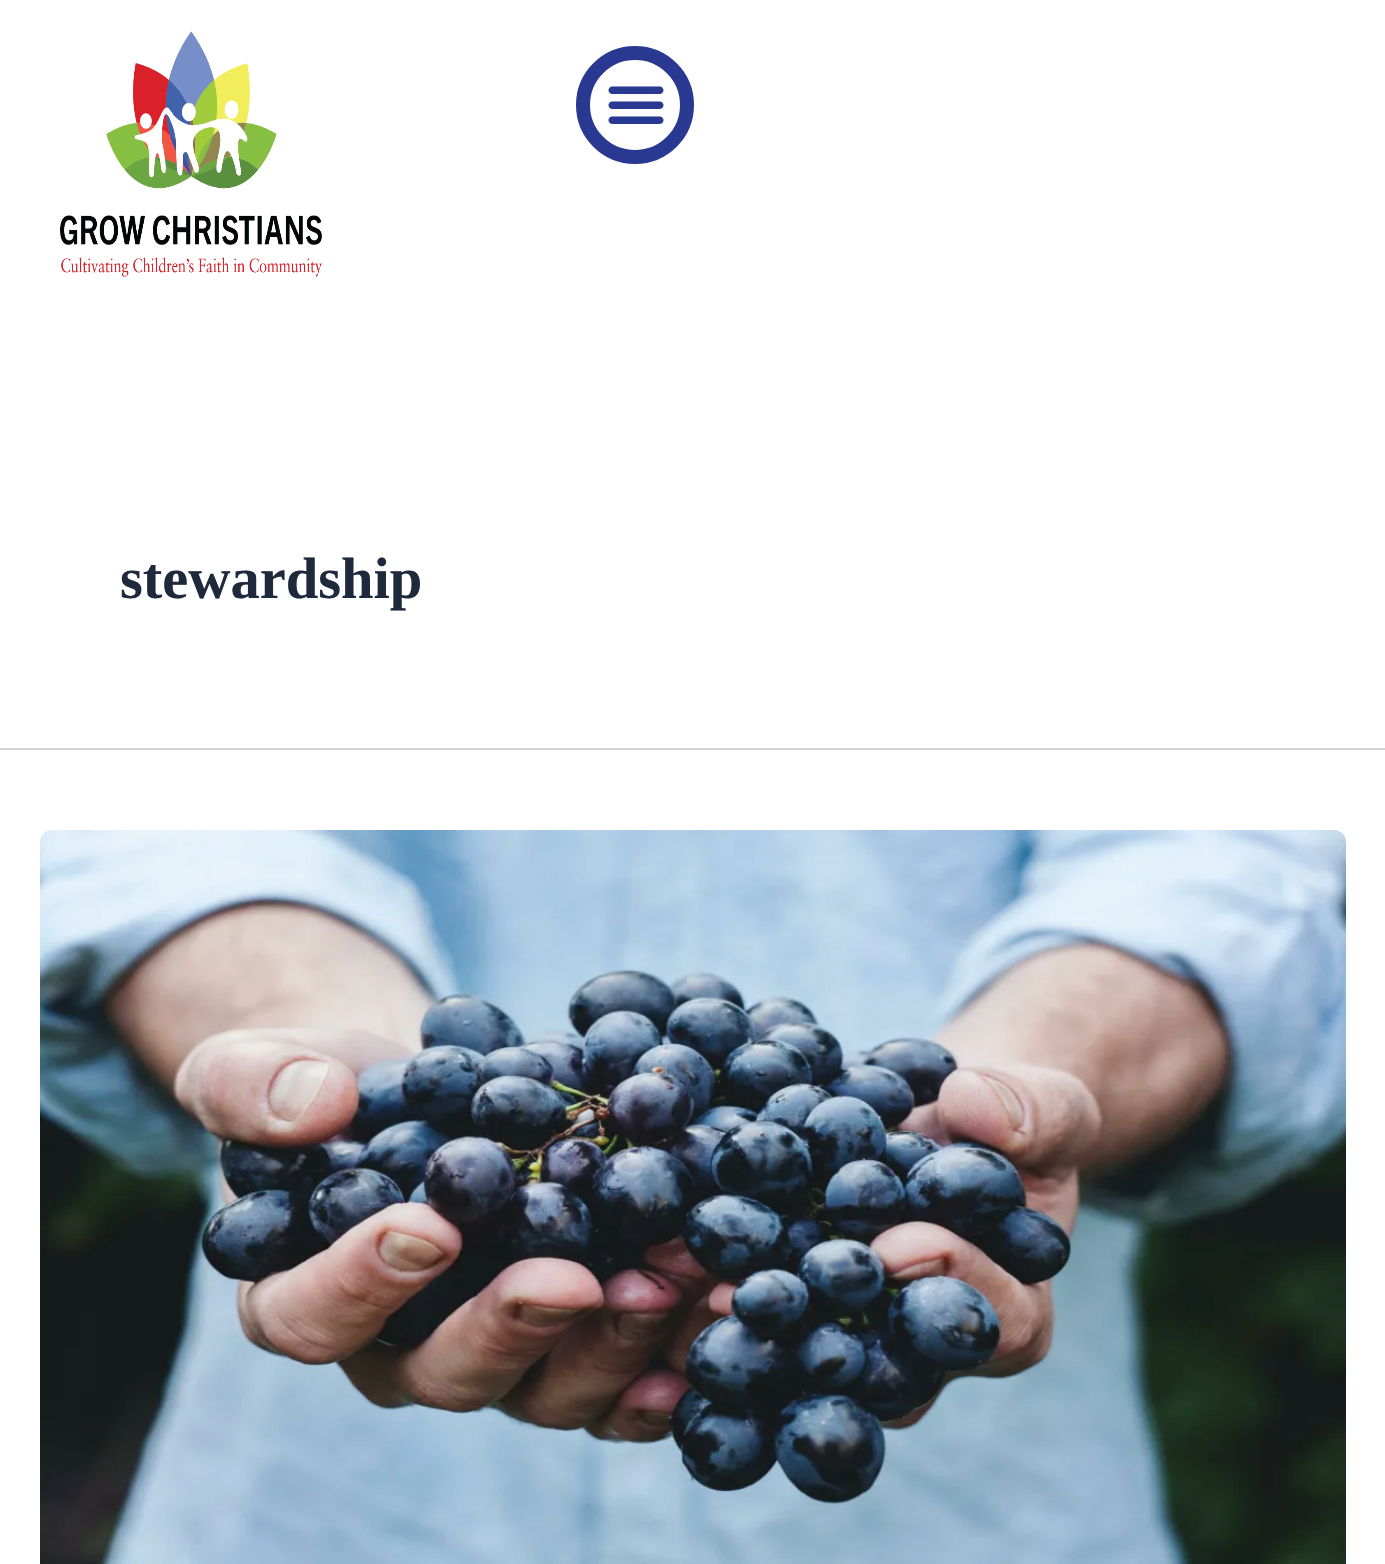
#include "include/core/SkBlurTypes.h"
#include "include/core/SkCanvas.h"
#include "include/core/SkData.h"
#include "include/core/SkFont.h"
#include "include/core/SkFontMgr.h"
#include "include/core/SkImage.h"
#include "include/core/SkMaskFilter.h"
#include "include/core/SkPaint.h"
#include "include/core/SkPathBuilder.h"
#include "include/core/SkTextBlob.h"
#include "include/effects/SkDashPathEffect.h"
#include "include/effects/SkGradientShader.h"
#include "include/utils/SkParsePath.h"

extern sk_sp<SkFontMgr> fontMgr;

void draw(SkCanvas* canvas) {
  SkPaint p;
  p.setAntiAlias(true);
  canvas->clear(SK_ColorWHITE);
  canvas->drawImageRect(SkImages::DeferredFromEncodedData(SkData::MakeFromFileName("images/1.png")), SkRect::MakeLTRB(60, 31, 322, 277), SkSamplingOptions());
  p.setStyle(SkPaint::kStroke_Style);
  p.setStrokeWidth(14);
  p.setColor(SkColorSetRGB(41, 56, 145));
  canvas->drawCircle(635, 105, 52, p);
  canvas->drawImageRect(SkImages::DeferredFromEncodedData(SkData::MakeFromFileName("images/2.png")), SkRect::MakeLTRB(608, 86, 664, 124), SkSamplingOptions());
  p.setStyle(SkPaint::kFill_Style);
  p.setColor(SkColorSetRGB(209, 213, 219));
  canvas->drawRect(SkRect::MakeLTRB(0, 748, 1385, 750), p);
  canvas->drawImageRect(SkImages::DeferredFromEncodedData(SkData::MakeFromFileName("images/3.png")), SkRect::MakeLTRB(40, 830, 1346, 1564), SkSamplingOptions());
  SkFont font1(fontMgr->matchFamilyStyle("Liberation Serif", SkFontStyle::Bold()), 58.5f);
  font1.setSubpixel(true);
  p.setColor(SkColorSetRGB(30, 41, 59));
  canvas->drawString("stewardship", 120, 598, font1, p);
}
